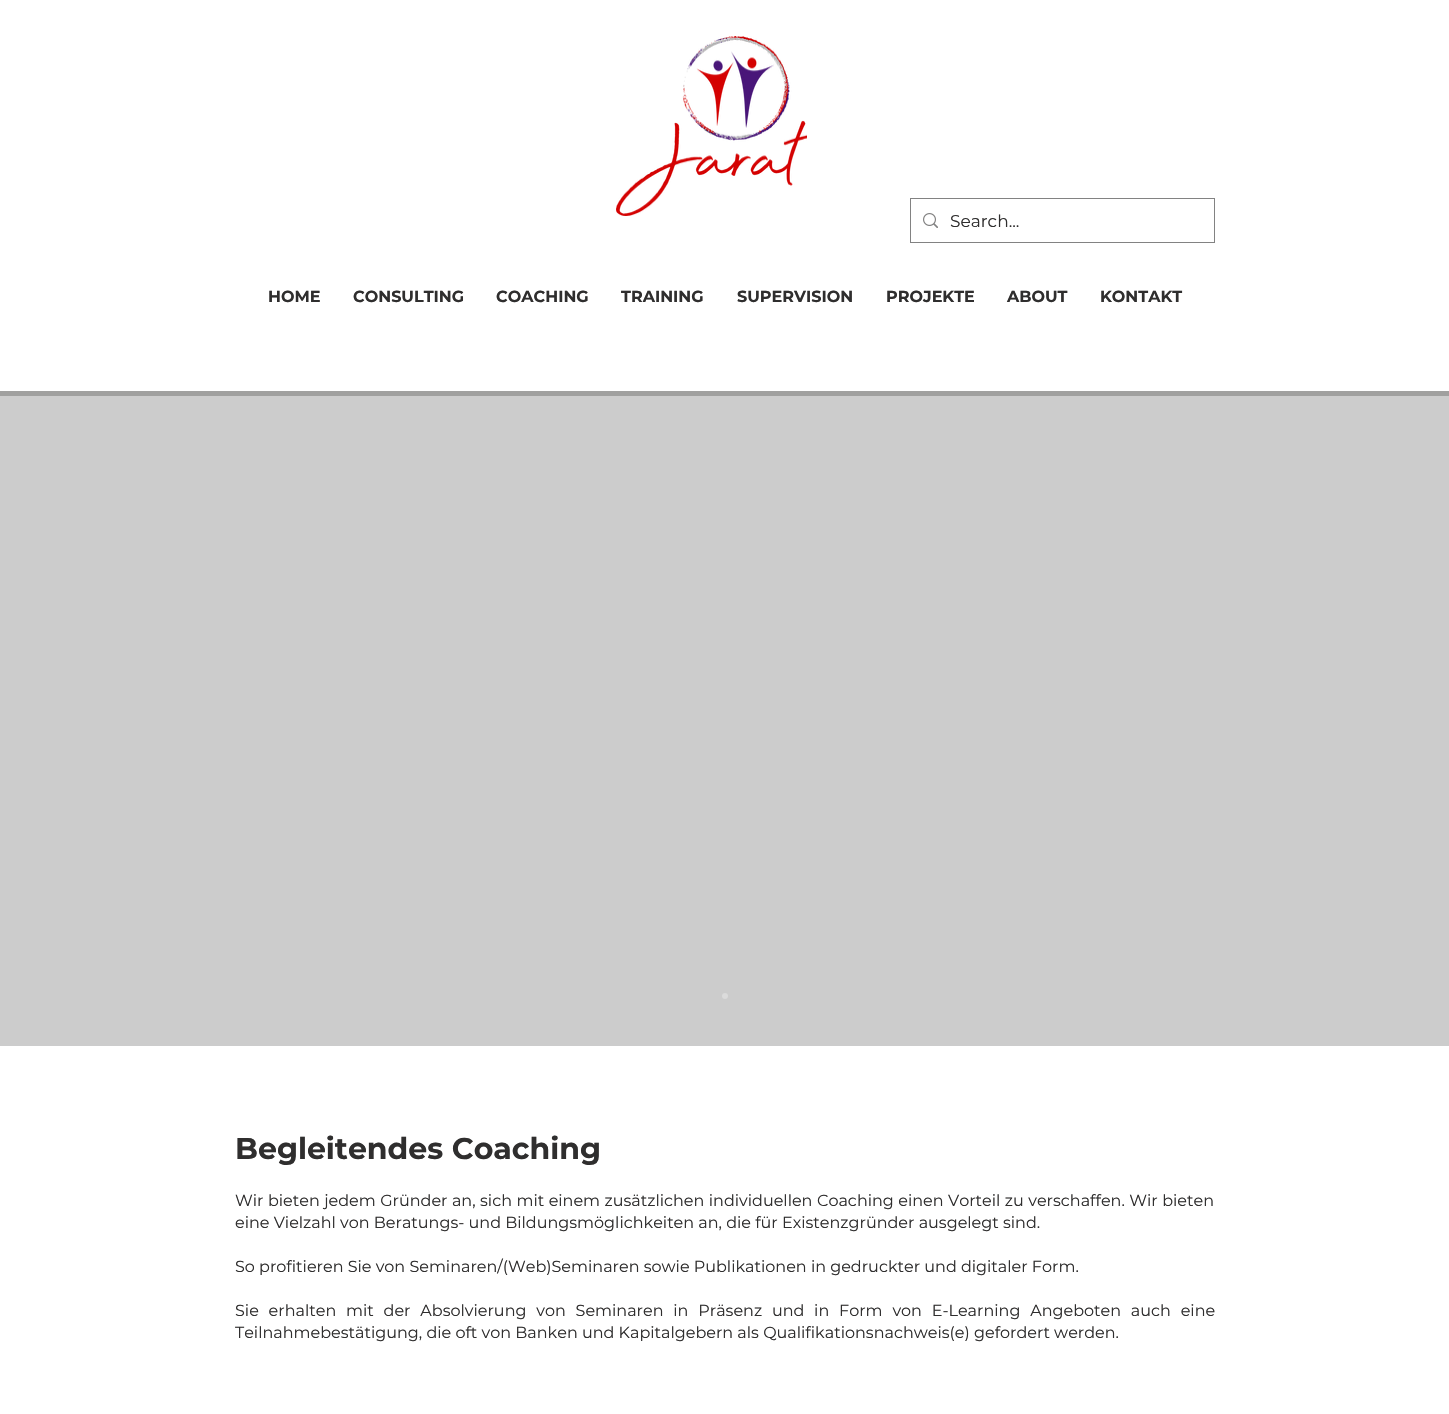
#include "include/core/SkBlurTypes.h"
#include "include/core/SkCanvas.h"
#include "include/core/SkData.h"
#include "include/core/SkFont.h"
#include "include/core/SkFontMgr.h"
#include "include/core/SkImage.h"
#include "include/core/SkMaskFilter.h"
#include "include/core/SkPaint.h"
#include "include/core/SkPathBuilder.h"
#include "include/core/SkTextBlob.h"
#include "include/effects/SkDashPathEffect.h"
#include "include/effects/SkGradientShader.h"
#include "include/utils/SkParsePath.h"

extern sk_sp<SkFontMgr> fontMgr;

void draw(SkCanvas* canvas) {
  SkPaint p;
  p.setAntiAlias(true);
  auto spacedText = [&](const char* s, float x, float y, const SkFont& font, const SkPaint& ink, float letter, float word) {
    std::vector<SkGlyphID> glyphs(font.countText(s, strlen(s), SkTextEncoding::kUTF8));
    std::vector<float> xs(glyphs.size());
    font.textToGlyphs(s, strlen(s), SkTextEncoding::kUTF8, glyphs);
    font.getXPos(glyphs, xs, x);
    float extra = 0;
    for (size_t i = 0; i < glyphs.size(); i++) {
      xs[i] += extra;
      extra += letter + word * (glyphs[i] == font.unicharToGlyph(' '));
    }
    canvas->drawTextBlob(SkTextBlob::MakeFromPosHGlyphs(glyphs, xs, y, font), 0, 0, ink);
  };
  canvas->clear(SK_ColorWHITE);
  canvas->drawImageRect(SkImages::DeferredFromEncodedData(SkData::MakeFromFileName("images/1.png")), SkRect::MakeLTRB(616, 36, 807, 216), SkSamplingOptions());
  p.setStyle(SkPaint::kStroke_Style);
  p.setStrokeWidth(1);
  p.setColor(SkColorSetRGB(130, 130, 130));
  canvas->drawRect(SkRect::MakeLTRB(910.5f, 198.5f, 1214.5f, 242.5f), p);
  canvas->drawImageRect(SkImages::DeferredFromEncodedData(SkData::MakeFromFileName("images/2.png")), SkRect::MakeLTRB(923, 213, 938, 228), SkSamplingOptions());
  p.setStyle(SkPaint::kFill_Style);
  p.setColor(SkColorSetRGB(160, 160, 159));
  canvas->drawRect(SkRect::MakeLTRB(0, 391, 1449, 396), p);
  p.setColor(SkColorSetRGB(204, 204, 204));
  canvas->drawRect(SkRect::MakeLTRB(0, 396, 1449, 1046), p);
  p.setColor(SkColorSetRGB(219, 219, 219));
  canvas->drawCircle(725, 996, 3, p);
  SkFont font1(fontMgr->matchFamilyStyle("Montserrat", SkFontStyle::Normal()), 17);
  font1.setSubpixel(true);
  p.setColor(SkColorSetRGB(47, 46, 46));
  canvas->drawString("Search...", 950, 227, font1, p);
  SkFont font2(fontMgr->matchFamilyStyle("Montserrat", SkFontStyle::Bold()), 16);
  font2.setSubpixel(true);
  canvas->drawString("HOME", 268, 302, font2, p);
  canvas->drawString("CONSULTING", 353, 302, font2, p);
  canvas->drawString("COACHING", 496, 302, font2, p);
  canvas->drawString("TRAINING", 621, 302, font2, p);
  canvas->drawString("SUPERVISION", 737, 302, font2, p);
  canvas->drawString("PROJEKTE", 886, 302, font2, p);
  canvas->drawString("ABOUT", 1007, 302, font2, p);
  canvas->drawString("KONTAKT", 1100, 302, font2, p);
  SkFont font3(fontMgr->matchFamilyStyle("Montserrat", SkFontStyle::Bold()), 30);
  font3.setSubpixel(true);
  canvas->drawString("Begleitendes Coaching", 235, 1159, font3, p);
  SkFont font4(fontMgr->matchFamilyStyle("Montserrat", SkFontStyle::Normal()), 16);
  font4.setSubpixel(true);
  spacedText("Wir bieten jedem Gründer an, sich mit einem zusätzlichen individuellen Coaching einen Vorteil zu verschaffen. Wir bieten", 235, 1206, font4, p, 0, 0.25f);
  canvas->drawString("eine Vielzahl von Beratungs- und Bildungsmöglichkeiten an, die für Existenzgründer ausgelegt sind.", 235, 1228, font4, p);
  canvas->drawString("So profitieren Sie von Seminaren/(Web)Seminaren sowie Publikationen in gedruckter und digitaler Form.", 235, 1272, font4, p);
  spacedText("Sie erhalten mit der Absolvierung von Seminaren in Präsenz und in Form von E-Learning Angeboten auch eine", 235, 1316, font4, p, 0, 5.6f);
  canvas->drawString("Teilnahmebestätigung, die oft von Banken und Kapitalgebern als Qualifikationsnachweis(e) gefordert werden.", 235, 1338, font4, p);
}
